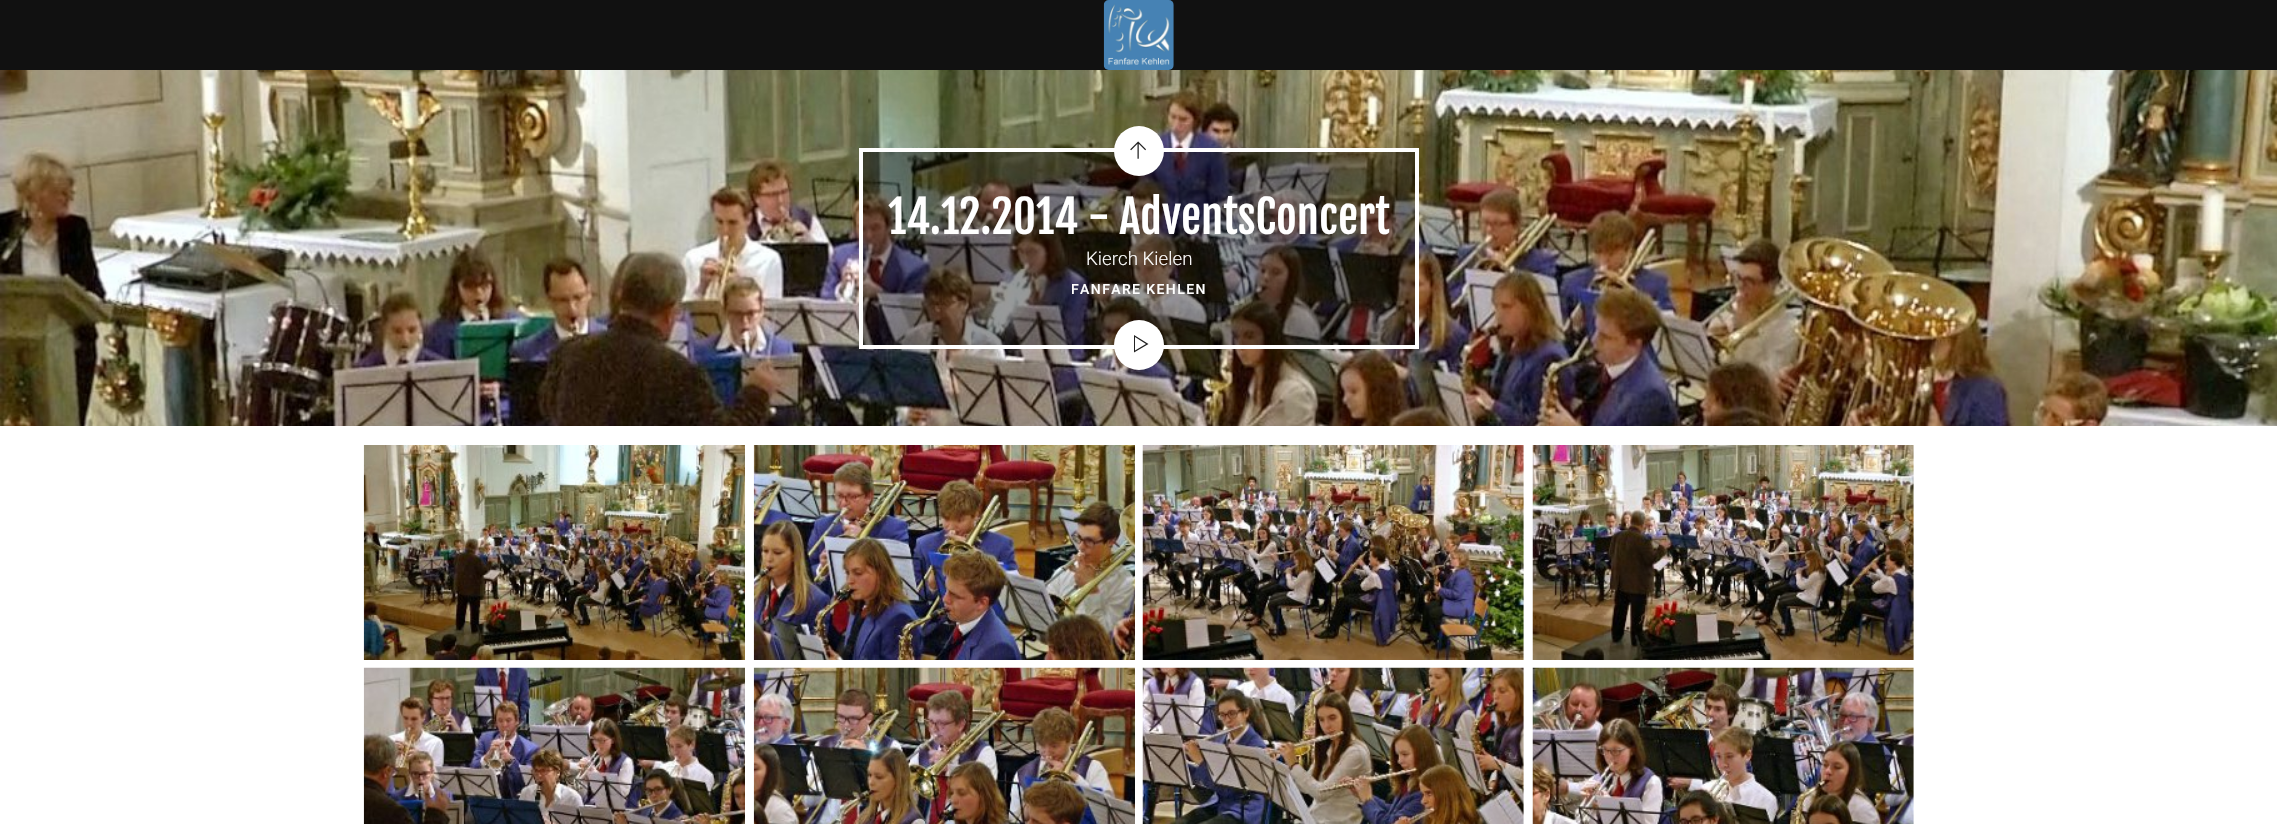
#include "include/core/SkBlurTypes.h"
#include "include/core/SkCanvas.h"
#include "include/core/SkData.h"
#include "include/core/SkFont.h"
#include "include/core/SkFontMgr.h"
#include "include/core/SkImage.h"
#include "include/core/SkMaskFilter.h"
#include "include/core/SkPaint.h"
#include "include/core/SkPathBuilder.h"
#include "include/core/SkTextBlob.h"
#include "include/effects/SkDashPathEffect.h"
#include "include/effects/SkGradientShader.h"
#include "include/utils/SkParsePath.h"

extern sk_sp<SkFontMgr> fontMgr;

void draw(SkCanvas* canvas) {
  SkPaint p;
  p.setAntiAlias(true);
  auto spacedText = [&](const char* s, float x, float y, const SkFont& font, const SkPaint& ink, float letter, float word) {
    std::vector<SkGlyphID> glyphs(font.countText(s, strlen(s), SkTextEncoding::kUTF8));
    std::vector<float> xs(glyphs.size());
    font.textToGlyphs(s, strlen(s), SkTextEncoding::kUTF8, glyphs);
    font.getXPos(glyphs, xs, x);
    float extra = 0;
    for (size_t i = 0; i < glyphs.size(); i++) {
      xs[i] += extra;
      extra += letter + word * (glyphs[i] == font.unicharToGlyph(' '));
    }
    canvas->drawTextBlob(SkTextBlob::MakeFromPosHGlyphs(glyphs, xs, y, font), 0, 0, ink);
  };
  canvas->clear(SkColorSetRGB(17, 17, 17));
  canvas->drawImageRect(SkImages::DeferredFromEncodedData(SkData::MakeFromFileName("images/1.png")), SkRect::MakeLTRB(1103, 0, 1174, 70), SkSamplingOptions());
  canvas->drawImageRect(SkImages::DeferredFromEncodedData(SkData::MakeFromFileName("images/2.png")), SkRect::MakeLTRB(0, 70, 2277, 426), SkSamplingOptions());
  p.setColor(SkColorSetARGB(102, 0, 0, 0));
  canvas->drawRect(SkRect::MakeLTRB(861, 150, 1417, 347), p);
  p.setStyle(SkPaint::kStroke_Style);
  p.setStrokeWidth(4);
  p.setColor(SK_ColorWHITE);
  canvas->drawRect(SkRect::MakeLTRB(861, 150, 1417, 347), p);
  p.setStyle(SkPaint::kFill_Style);
  canvas->drawCircle(1139, 151, 25, p);
  canvas->drawImageRect(SkImages::DeferredFromEncodedData(SkData::MakeFromFileName("images/3.png")), SkRect::MakeLTRB(1130, 141, 1146, 159), SkSamplingOptions());
  canvas->drawCircle(1139, 345, 25, p);
  p.setColor(SkColorSetRGB(34, 34, 34));
  canvas->drawPath(SkPathBuilder().moveTo(1135, 337).lineTo(1146, 344).lineTo(1135, 350.5f).close().moveTo(1134, 335).lineTo(1134, 352.5f).lineTo(1148.5f, 344).close().detach(), p);
  p.setColor(SK_ColorWHITE);
  canvas->drawRect(SkRect::MakeLTRB(0, 426, 2277, 824), p);
  canvas->drawImageRect(SkImages::DeferredFromEncodedData(SkData::MakeFromFileName("images/4.png")), SkRect::MakeLTRB(363, 445, 745, 660), SkSamplingOptions());
  canvas->drawImageRect(SkImages::DeferredFromEncodedData(SkData::MakeFromFileName("images/5.png")), SkRect::MakeLTRB(753, 445, 1135, 660), SkSamplingOptions());
  canvas->drawImageRect(SkImages::DeferredFromEncodedData(SkData::MakeFromFileName("images/6.png")), SkRect::MakeLTRB(1142, 445, 1524, 660), SkSamplingOptions());
  canvas->drawImageRect(SkImages::DeferredFromEncodedData(SkData::MakeFromFileName("images/7.png")), SkRect::MakeLTRB(1532, 445, 1914, 660), SkSamplingOptions());
  canvas->drawImageRect(SkImages::DeferredFromEncodedData(SkData::MakeFromFileName("images/8.png")), SkRect::MakeLTRB(363, 667, 745, 824), SkSamplingOptions());
  canvas->drawImageRect(SkImages::DeferredFromEncodedData(SkData::MakeFromFileName("images/9.png")), SkRect::MakeLTRB(753, 667, 1135, 824), SkSamplingOptions());
  canvas->drawImageRect(SkImages::DeferredFromEncodedData(SkData::MakeFromFileName("images/10.png")), SkRect::MakeLTRB(1142, 667, 1524, 824), SkSamplingOptions());
  canvas->drawImageRect(SkImages::DeferredFromEncodedData(SkData::MakeFromFileName("images/11.png")), SkRect::MakeLTRB(1532, 667, 1914, 824), SkSamplingOptions());
  SkFont font1(fontMgr->matchFamilyStyle("Fjalla One", SkFontStyle::Normal()), 45);
  font1.setSubpixel(true);
  canvas->drawString("14.12.2014 - AdventsConcert", 888, 234, font1, p);
  SkFont font2(fontMgr->matchFamilyStyle("Roboto", SkFontStyle(300, SkFontStyle::kNormal_Width, SkFontStyle::kUpright_Slant)), 18.75f);
  font2.setSubpixel(true);
  canvas->drawString("Kierch Kielen", 1086, 265, font2, p);
  SkFont font3(fontMgr->matchFamilyStyle("Roboto", SkFontStyle(500, SkFontStyle::kNormal_Width, SkFontStyle::kUpright_Slant)), 14);
  font3.setSubpixel(true);
  spacedText("FANFARE KEHLEN", 1071, 294, font3, p, 1.4f, 0);
}
